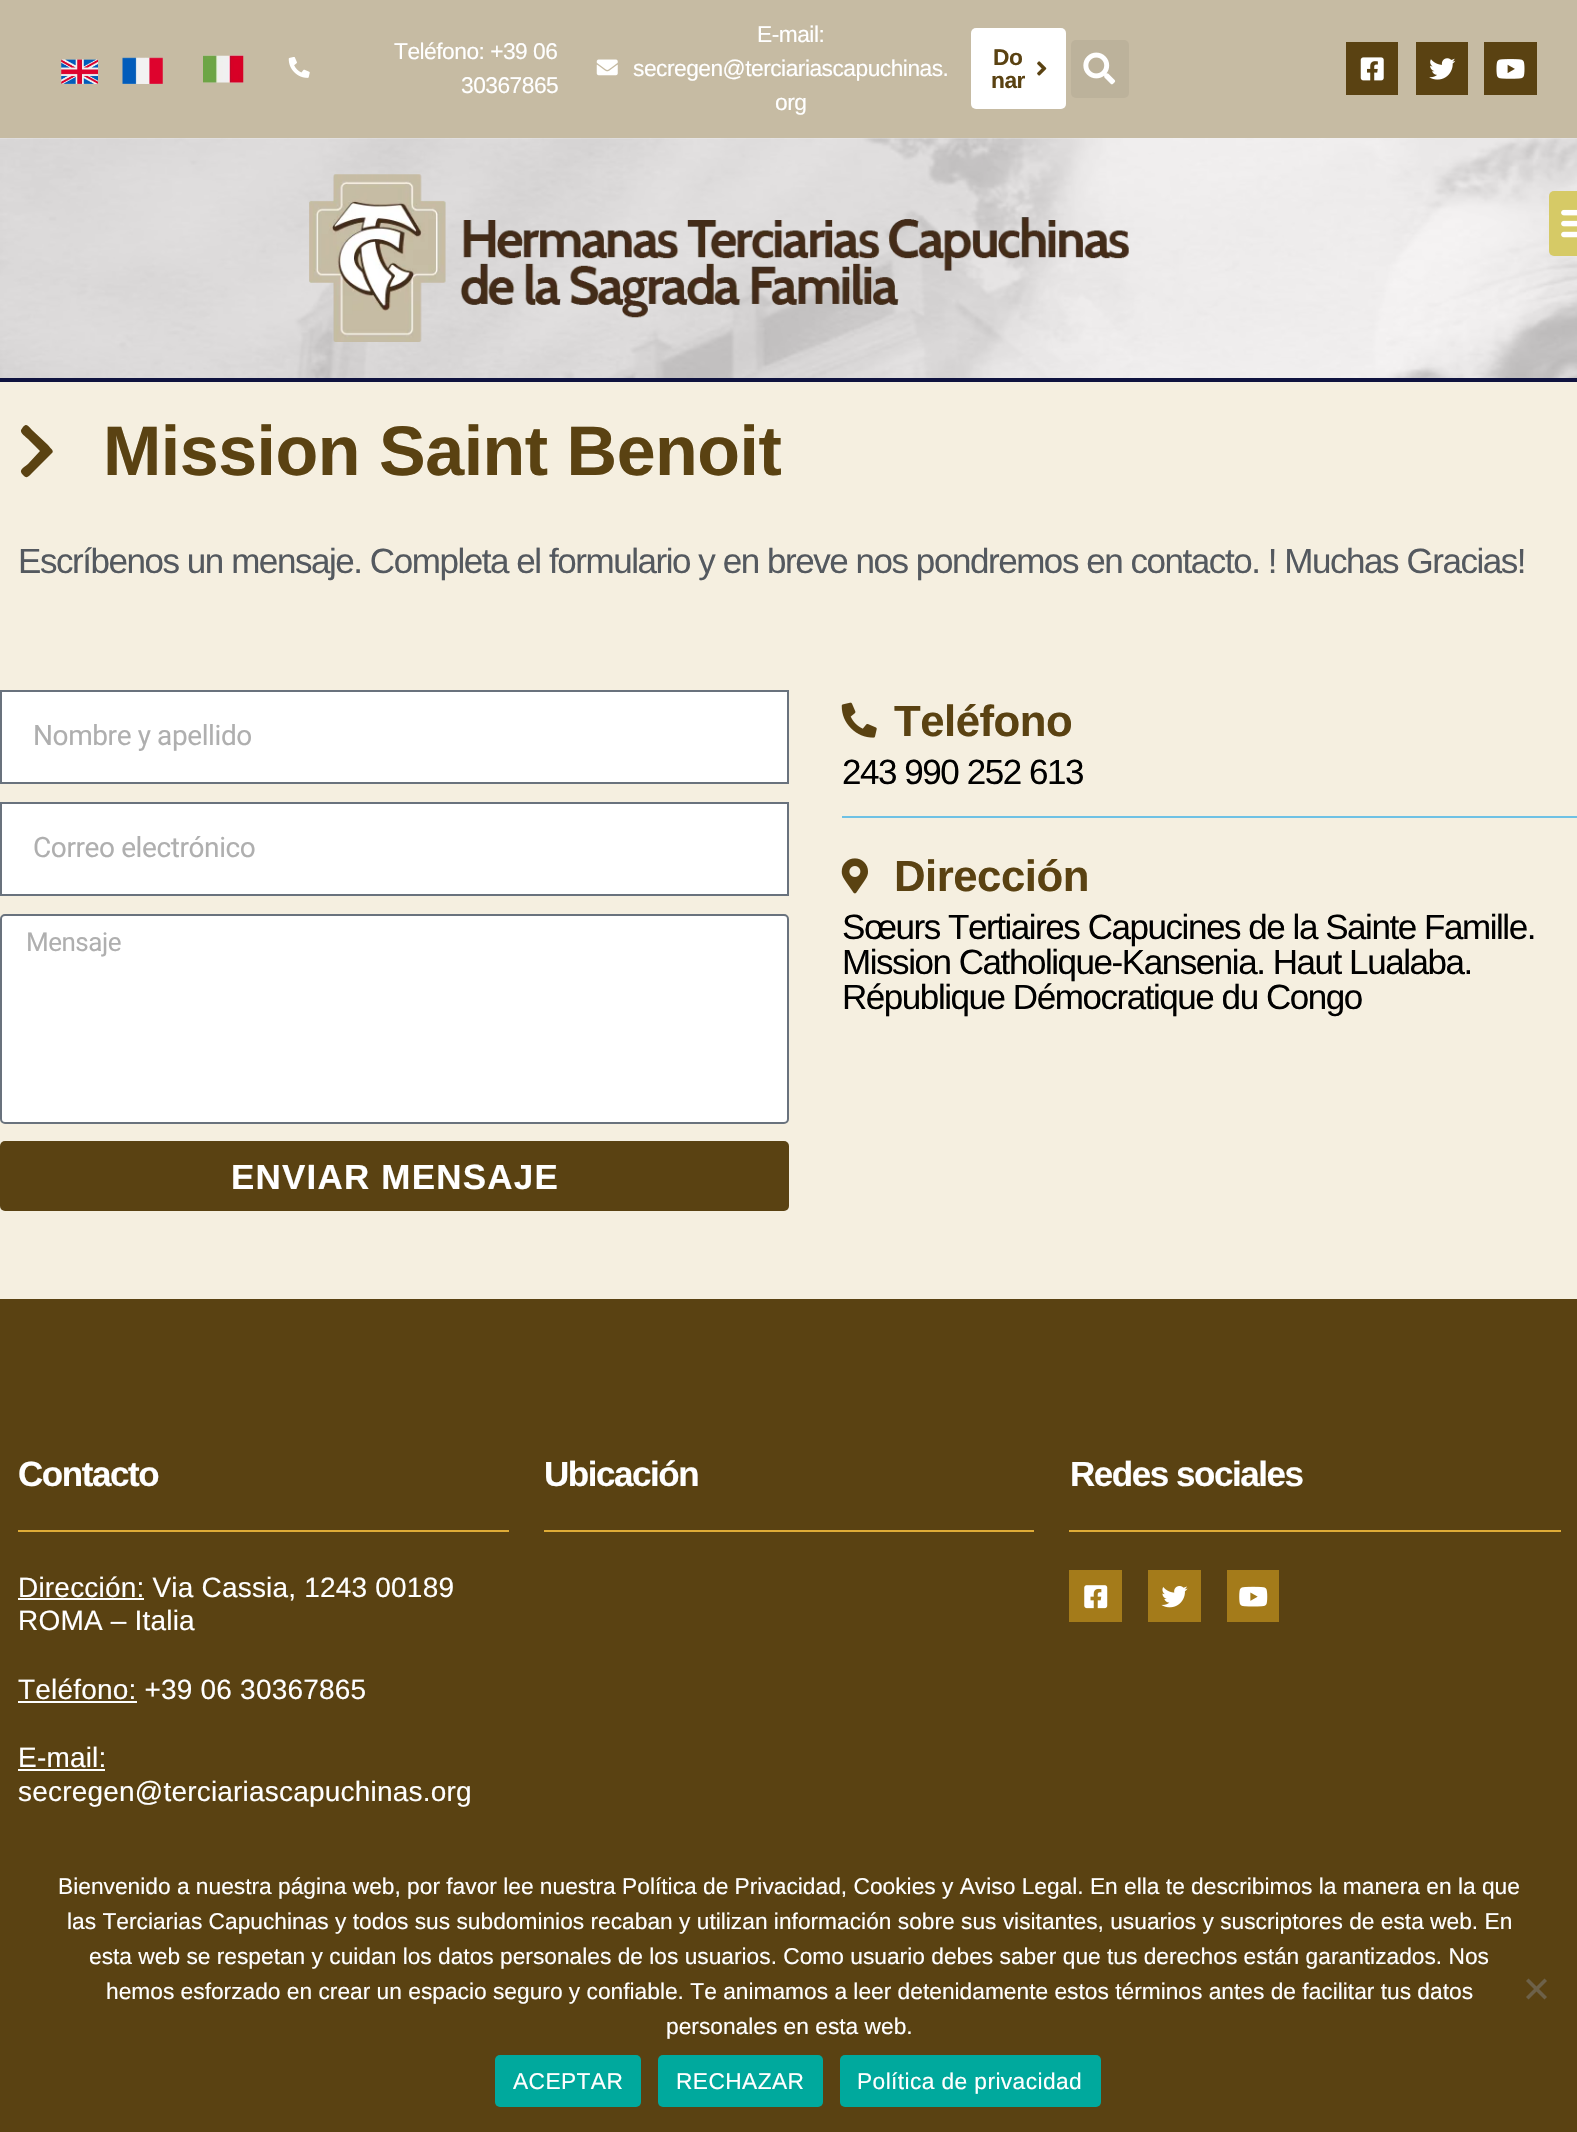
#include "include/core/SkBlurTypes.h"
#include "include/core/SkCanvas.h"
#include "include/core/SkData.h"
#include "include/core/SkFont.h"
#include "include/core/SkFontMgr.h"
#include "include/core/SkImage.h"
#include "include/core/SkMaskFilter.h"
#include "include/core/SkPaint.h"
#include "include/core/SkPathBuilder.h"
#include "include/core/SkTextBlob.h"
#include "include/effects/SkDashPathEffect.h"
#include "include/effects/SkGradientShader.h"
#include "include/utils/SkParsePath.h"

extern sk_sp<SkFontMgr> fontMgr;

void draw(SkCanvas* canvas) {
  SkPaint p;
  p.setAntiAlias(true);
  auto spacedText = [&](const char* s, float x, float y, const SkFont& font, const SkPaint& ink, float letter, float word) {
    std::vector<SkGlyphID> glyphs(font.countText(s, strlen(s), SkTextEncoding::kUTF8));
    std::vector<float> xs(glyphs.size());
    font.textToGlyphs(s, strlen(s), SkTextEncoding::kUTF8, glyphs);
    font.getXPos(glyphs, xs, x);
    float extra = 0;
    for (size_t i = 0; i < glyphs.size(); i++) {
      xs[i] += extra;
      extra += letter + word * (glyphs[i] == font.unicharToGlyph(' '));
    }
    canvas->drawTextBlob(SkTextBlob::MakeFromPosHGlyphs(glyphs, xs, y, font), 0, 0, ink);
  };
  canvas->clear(SkColorSetRGB(245, 239, 224));
  p.setColor(SkColorSetRGB(198, 187, 163));
  canvas->drawRect(SkRect::MakeLTRB(0, 0, 1577, 138), p);
  canvas->drawImageRect(SkImages::DeferredFromEncodedData(SkData::MakeFromFileName("images/1.png")), SkRect::MakeLTRB(61, 59, 98, 84), SkSamplingOptions());
  canvas->drawImageRect(SkImages::DeferredFromEncodedData(SkData::MakeFromFileName("images/2.png")), SkRect::MakeLTRB(122, 57, 163, 84), SkSamplingOptions());
  canvas->drawImageRect(SkImages::DeferredFromEncodedData(SkData::MakeFromFileName("images/3.png")), SkRect::MakeLTRB(203, 55, 244, 83), SkSamplingOptions());
  canvas->drawImageRect(SkImages::DeferredFromEncodedData(SkData::MakeFromFileName("images/4.png")), SkRect::MakeLTRB(288, 57, 310, 78), SkSamplingOptions());
  canvas->drawImageRect(SkImages::DeferredFromEncodedData(SkData::MakeFromFileName("images/5.png")), SkRect::MakeLTRB(596, 59, 618, 76), SkSamplingOptions());
  p.setColor(SK_ColorWHITE);
  canvas->drawRoundRect(SkRect::MakeLTRB(971, 28, 1066, 109), 5, 5, p);
  canvas->drawImageRect(SkImages::DeferredFromEncodedData(SkData::MakeFromFileName("images/6.png")), SkRect::MakeLTRB(1037, 61, 1047, 76), SkSamplingOptions());
  p.setColor(SkColorSetRGB(188, 178, 155));
  canvas->drawRoundRect(SkRect::MakeLTRB(1071, 40, 1129, 98), 5, 5, p);
  canvas->drawImageRect(SkImages::DeferredFromEncodedData(SkData::MakeFromFileName("images/7.png")), SkRect::MakeLTRB(1083, 52, 1116, 85), SkSamplingOptions());
  p.setColor(SkColorSetRGB(90, 66, 18));
  canvas->drawRect(SkRect::MakeLTRB(1346, 42, 1398, 95), p);
  canvas->drawImageRect(SkImages::DeferredFromEncodedData(SkData::MakeFromFileName("images/8.png")), SkRect::MakeLTRB(1360, 57, 1384, 81), SkSamplingOptions());
  canvas->drawRect(SkRect::MakeLTRB(1416, 42, 1468, 95), p);
  canvas->drawImageRect(SkImages::DeferredFromEncodedData(SkData::MakeFromFileName("images/9.png")), SkRect::MakeLTRB(1429, 58, 1456, 80), SkSamplingOptions());
  canvas->drawRect(SkRect::MakeLTRB(1484, 42, 1537, 95), p);
  canvas->drawImageRect(SkImages::DeferredFromEncodedData(SkData::MakeFromFileName("images/10.png")), SkRect::MakeLTRB(1496, 59, 1525, 79), SkSamplingOptions());
  p.setColor(SkColorSetRGB(15, 19, 63));
  canvas->drawRect(SkRect::MakeLTRB(0, 378, 1577, 382), p);
  p.setColor(SkColorSetRGB(244, 241, 241));
  canvas->drawRect(SkRect::MakeLTRB(0, 138, 1577, 378), p);
  canvas->drawImageRect(SkImages::DeferredFromEncodedData(SkData::MakeFromFileName("images/11.png")), SkRect::MakeLTRB(0, 138, 1577, 378), SkSamplingOptions());
  canvas->drawImageRect(SkImages::DeferredFromEncodedData(SkData::MakeFromFileName("images/12.png")), SkRect::MakeLTRB(309, 174, 1129, 342), SkSamplingOptions());
  p.setColor(SkColorSetRGB(214, 202, 102));
  canvas->drawRoundRect(SkRect::MakeLTRB(1549, 191, 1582, 256), 5, 5, p);
  canvas->drawImageRect(SkImages::DeferredFromEncodedData(SkData::MakeFromFileName("images/13.png")), SkRect::MakeLTRB(1561, 209, 1577, 238), SkSamplingOptions());
  p.setColor(SkColorSetRGB(90, 66, 18));
  canvas->drawPath(SkPathBuilder().moveTo(52, 453).lineTo(32, 473).cubicTo(28, 477, 27, 479, 23, 475).cubicTo(18, 470, 23, 468, 28, 464).lineTo(40, 451).lineTo(28, 439).cubicTo(26, 437, 20, 433, 21, 430).lineTo(23, 427).cubicTo(27, 423, 28, 426, 32, 430).lineTo(48, 445).cubicTo(49, 447, 55, 451, 52, 453).close().detach(), p);
  p.setColor(SK_ColorWHITE);
  canvas->drawRect(SkRect::MakeLTRB(1, 691, 788, 783), p);
  p.setStyle(SkPaint::kStroke_Style);
  p.setStrokeWidth(2);
  p.setColor(SkColorSetRGB(105, 114, 125));
  canvas->drawRect(SkRect::MakeLTRB(1, 691, 788, 783), p);
  p.setStyle(SkPaint::kFill_Style);
  p.setColor(SK_ColorWHITE);
  canvas->drawRect(SkRect::MakeLTRB(1, 803, 788, 895), p);
  p.setStyle(SkPaint::kStroke_Style);
  p.setColor(SkColorSetRGB(105, 114, 125));
  canvas->drawRect(SkRect::MakeLTRB(1, 803, 788, 895), p);
  p.setStyle(SkPaint::kFill_Style);
  p.setColor(SK_ColorWHITE);
  canvas->drawRoundRect(SkRect::MakeLTRB(1, 915, 788, 1123), 4, 4, p);
  p.setStyle(SkPaint::kStroke_Style);
  p.setColor(SkColorSetRGB(105, 114, 125));
  canvas->drawRoundRect(SkRect::MakeLTRB(1, 915, 788, 1123), 4, 4, p);
  p.setStyle(SkPaint::kFill_Style);
  p.setColor(SkColorSetRGB(90, 66, 18));
  canvas->drawRoundRect(SkRect::MakeLTRB(0, 1141, 789, 1211), 5, 5, p);
  canvas->drawImageRect(SkImages::DeferredFromEncodedData(SkData::MakeFromFileName("images/14.png")), SkRect::MakeLTRB(841, 702, 877, 738), SkSamplingOptions());
  p.setColor(SkColorSetRGB(110, 193, 228));
  canvas->drawRect(SkRect::MakeLTRB(842, 816, 1577, 818), p);
  canvas->drawImageRect(SkImages::DeferredFromEncodedData(SkData::MakeFromFileName("images/15.png")), SkRect::MakeLTRB(841, 858, 868, 894), SkSamplingOptions());
  p.setColor(SkColorSetRGB(90, 66, 18));
  canvas->drawRect(SkRect::MakeLTRB(0, 1299, 1577, 2132), p);
  p.setColor(SkColorSetRGB(223, 172, 55));
  canvas->drawRect(SkRect::MakeLTRB(18, 1530, 509, 1532), p);
  p.setColor(SK_ColorWHITE);
  canvas->drawRect(SkRect::MakeLTRB(18, 1598, 144, 1600), p);
  canvas->drawRect(SkRect::MakeLTRB(18, 1701, 137, 1703), p);
  canvas->drawRect(SkRect::MakeLTRB(18, 1769, 105, 1771), p);
  p.setColor(SkColorSetRGB(223, 172, 55));
  canvas->drawRect(SkRect::MakeLTRB(544, 1530, 1034, 1532), p);
  canvas->drawRect(SkRect::MakeLTRB(1069, 1530, 1561, 1532), p);
  p.setColor(SkColorSetRGB(164, 123, 26));
  canvas->drawRect(SkRect::MakeLTRB(1069, 1570, 1122, 1622), p);
  canvas->drawImageRect(SkImages::DeferredFromEncodedData(SkData::MakeFromFileName("images/16.png")), SkRect::MakeLTRB(1084, 1585, 1108, 1609), SkSamplingOptions());
  canvas->drawRect(SkRect::MakeLTRB(1148, 1570, 1201, 1622), p);
  canvas->drawImageRect(SkImages::DeferredFromEncodedData(SkData::MakeFromFileName("images/17.png")), SkRect::MakeLTRB(1161, 1586, 1188, 1608), SkSamplingOptions());
  canvas->drawRect(SkRect::MakeLTRB(1227, 1570, 1279, 1622), p);
  canvas->drawImageRect(SkImages::DeferredFromEncodedData(SkData::MakeFromFileName("images/18.png")), SkRect::MakeLTRB(1239, 1586, 1268, 1607), SkSamplingOptions());
  p.setColor(SkColorSetRGB(109, 97, 73));
  canvas->drawPath(SkPathBuilder().moveTo(1544.5f, 1978.5f).lineTo(1547, 1981).lineTo(1528.5f, 1999.5f).lineTo(1526, 1997).close().detach(), p);
  canvas->drawPath(SkPathBuilder().moveTo(1526, 1981).lineTo(1528.5f, 1978.5f).lineTo(1547, 1997).lineTo(1544.5f, 1999.5f).close().detach(), p);
  p.setColor(SkColorSetRGB(0, 169, 157));
  canvas->drawRoundRect(SkRect::MakeLTRB(495, 2055, 641, 2107), 5, 5, p);
  canvas->drawRoundRect(SkRect::MakeLTRB(658, 2055, 823, 2107), 5, 5, p);
  canvas->drawRoundRect(SkRect::MakeLTRB(840, 2055, 1101, 2107), 5, 5, p);
  SkFont font1(fontMgr->matchFamilyStyle("Liberation Sans", SkFontStyle::Normal()), 22.75f);
  font1.setSubpixel(true);
  p.setColor(SK_ColorWHITE);
  spacedText("Teléfono: +39 06", 394, 59, font1, p, -0.5f, 0);
  spacedText("30367865", 461, 93, font1, p, -0.5f, 0);
  spacedText("E-mail:", 757, 42, font1, p, -0.5f, 0);
  spacedText("secregen@terciariascapuchinas.", 633, 76, font1, p, -0.5f, 0);
  spacedText("org", 775, 110, font1, p, -0.5f, 0);
  SkFont font2(fontMgr->matchFamilyStyle("Liberation Sans", SkFontStyle::Bold()), 22.75f);
  font2.setSubpixel(true);
  p.setColor(SkColorSetRGB(90, 66, 18));
  spacedText("Do", 993, 65, font2, p, -0.5f, 0);
  spacedText("nar", 991, 88, font2, p, -0.5f, 0);
  SkFont font3(fontMgr->matchFamilyStyle("Liberation Sans", SkFontStyle::Bold()), 70);
  font3.setSubpixel(true);
  spacedText("Mission Saint Benoit", 103, 475, font3, p, -0.5f, 0);
  SkFont font4(fontMgr->matchFamilyStyle("Liberation Sans", SkFontStyle::Normal()), 35);
  font4.setSubpixel(true);
  p.setColor(SkColorSetRGB(84, 89, 95));
  spacedText("Escríbenos un mensaje. Completa el formulario y en breve nos pondremos en contacto. ! Muchas Gracias!", 18, 573, font4, p, -1.45f, 0);
  SkFont font5(fontMgr->matchFamilyStyle("Roboto", SkFontStyle::Normal()), 28);
  font5.setSubpixel(true);
  p.setColor(SkColorSetRGB(175, 175, 175));
  spacedText("Nombre y apellido", 33, 745, font5, p, -0.4f, 0);
  spacedText("Correo electrónico", 33, 857, font5, p, -0.4f, 0);
  SkFont font6(fontMgr->matchFamilyStyle("Roboto", SkFontStyle::Normal()), 26);
  font6.setSubpixel(true);
  spacedText("Mensaje", 26, 951, font6, p, -0.5f, 0);
  SkFont font7(fontMgr->matchFamilyStyle("Liberation Sans", SkFontStyle::Bold()), 35);
  font7.setSubpixel(true);
  p.setColor(SK_ColorWHITE);
  spacedText("ENVIAR MENSAJE", 231, 1189, font7, p, 1.2f, 0);
  SkFont font8(fontMgr->matchFamilyStyle("Liberation Sans", SkFontStyle::Bold()), 43.75f);
  font8.setSubpixel(true);
  p.setColor(SkColorSetRGB(90, 66, 18));
  spacedText("Teléfono", 894, 736, font8, p, -0.5f, 0);
  p.setColor(SK_ColorBLACK);
  spacedText("243 990 252 613", 842, 784, font4, p, -1.45f, 0);
  p.setColor(SkColorSetRGB(90, 66, 18));
  spacedText("Dirección", 894, 891, font8, p, -0.5f, 0);
  p.setColor(SK_ColorBLACK);
  spacedText("Sœurs Tertiaires Capucines de la Sainte Famille.", 842, 939, font4, p, -1.45f, 0);
  spacedText("Mission Catholique-Kansenia. Haut Lualaba.", 842, 974, font4, p, -1.45f, 0);
  spacedText("République Démocratique du Congo", 842, 1009, font4, p, -1.45f, 0);
  p.setColor(SK_ColorWHITE);
  spacedText("Contacto", 18, 1486, font7, p, -1.45f, 0);
  SkFont font9(fontMgr->matchFamilyStyle("Liberation Sans", SkFontStyle::Normal()), 28);
  font9.setSubpixel(true);
  spacedText("Dirección: Via Cassia, 1243 00189", 18, 1597, font9, p, 0.2f, 0);
  spacedText("ROMA – Italia", 18, 1630, font9, p, 0.2f, 0);
  spacedText("Teléfono: +39 06 30367865", 18, 1699, font9, p, 0.2f, 0);
  spacedText("E-mail:", 18, 1767, font9, p, 0.2f, 0);
  spacedText("secregen@terciariascapuchinas.org", 18, 1801, font9, p, 0.2f, 0);
  spacedText("Ubicación", 544, 1486, font7, p, -1.45f, 0);
  spacedText("Redes sociales", 1070, 1486, font7, p, -1.45f, 0);
  canvas->drawString("Bienvenido a nuestra página web, por favor lee nuestra Política de Privacidad, Cookies y Aviso Legal. En ella te describimos la manera en la que", 58, 1894, font1, p);
  canvas->drawString("las Terciarias Capuchinas y todos sus subdominios recaban y utilizan información sobre sus visitantes, usuarios y suscriptores de esta web. En", 67, 1929, font1, p);
  canvas->drawString("esta web se respetan y cuidan los datos personales de los usuarios. Como usuario debes saber que tus derechos están garantizados. Nos", 89, 1964, font1, p);
  canvas->drawString("hemos esforzado en crear un espacio seguro y confiable. Te animamos a leer detenidamente estos términos antes de facilitar tus datos", 106, 1999, font1, p);
  canvas->drawString("personales en esta web.", 666, 2034, font1, p);
  spacedText("ACEPTAR", 513, 2089, font1, p, 0.4f, 0);
  spacedText("RECHAZAR", 676, 2089, font1, p, 0.4f, 0);
  spacedText("Política de privacidad", 857, 2089, font1, p, 0.4f, 0);
}
